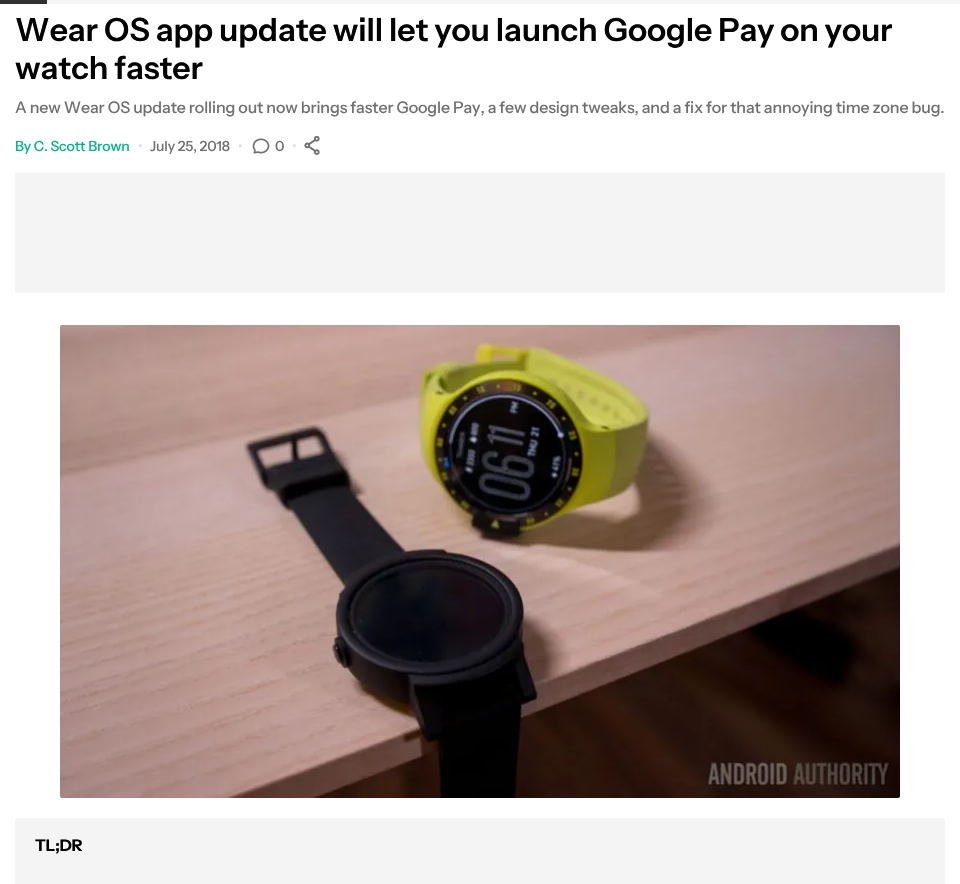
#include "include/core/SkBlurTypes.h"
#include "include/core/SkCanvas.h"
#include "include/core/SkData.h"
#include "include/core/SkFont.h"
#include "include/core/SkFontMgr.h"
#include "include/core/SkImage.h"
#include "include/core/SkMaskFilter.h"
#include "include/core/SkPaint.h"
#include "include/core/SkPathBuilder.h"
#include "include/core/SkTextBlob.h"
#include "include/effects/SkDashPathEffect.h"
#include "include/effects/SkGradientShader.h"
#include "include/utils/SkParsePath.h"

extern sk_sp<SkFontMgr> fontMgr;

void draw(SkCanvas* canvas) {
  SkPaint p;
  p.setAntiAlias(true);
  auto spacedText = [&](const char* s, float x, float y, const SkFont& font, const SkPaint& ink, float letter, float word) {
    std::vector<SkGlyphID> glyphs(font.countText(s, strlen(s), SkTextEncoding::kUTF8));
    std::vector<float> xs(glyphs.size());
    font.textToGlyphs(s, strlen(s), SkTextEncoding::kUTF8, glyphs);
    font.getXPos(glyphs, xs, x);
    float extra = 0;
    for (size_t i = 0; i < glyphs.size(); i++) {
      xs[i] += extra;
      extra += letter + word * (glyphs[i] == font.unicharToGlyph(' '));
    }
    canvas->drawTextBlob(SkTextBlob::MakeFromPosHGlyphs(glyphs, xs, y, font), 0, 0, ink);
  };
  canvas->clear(SK_ColorWHITE);
  p.setColor(SkColorSetRGB(244, 244, 244));
  canvas->drawRect(SkRect::MakeLTRB(47, 0, 960, 4), p);
  p.setColor(SkColorSetRGB(49, 49, 49));
  canvas->drawRect(SkRect::MakeLTRB(0, 0, 47, 4), p);
  canvas->drawImageRect(SkImages::DeferredFromEncodedData(SkData::MakeFromFileName("images/1.png")), SkRect::MakeLTRB(252, 138, 270, 154), SkSamplingOptions());
  canvas->drawImageRect(SkImages::DeferredFromEncodedData(SkData::MakeFromFileName("images/2.png")), SkRect::MakeLTRB(304, 135, 320, 155), SkSamplingOptions());
  p.setColor(SkColorSetRGB(244, 244, 244));
  canvas->drawRect(SkRect::MakeLTRB(15, 173, 945, 293), p);
  canvas->drawImageRect(SkImages::DeferredFromEncodedData(SkData::MakeFromFileName("images/3.png")), SkRect::MakeLTRB(60, 325, 900, 798), SkSamplingOptions());
  canvas->drawRoundRect(SkRect::MakeLTRB(15, 818, 945, 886), 2, 2, p);
  SkFont font1(fontMgr->matchFamilyStyle("Instrument Sans", SkFontStyle(600, SkFontStyle::kNormal_Width, SkFontStyle::kUpright_Slant)), 32);
  font1.setSubpixel(true);
  p.setColor(SK_ColorBLACK);
  spacedText("Wear OS app update will let you launch Google Pay on your", 15, 41, font1, p, -0.1f, 0);
  spacedText("watch faster", 15, 79, font1, p, -0.1f, 0);
  SkFont font2(fontMgr->matchFamilyStyle("Instrument Sans", SkFontStyle(500, SkFontStyle::kNormal_Width, SkFontStyle::kUpright_Slant)), 16);
  font2.setSubpixel(true);
  p.setColor(SkColorSetRGB(111, 111, 111));
  spacedText("A new Wear OS update rolling out now brings faster Google Pay, a few design tweaks, and a fix for that annoying time zone bug.", 15, 113, font2, p, -0.1f, 0);
  SkFont font3(fontMgr->matchFamilyStyle("Instrument Sans", SkFontStyle(500, SkFontStyle::kNormal_Width, SkFontStyle::kUpright_Slant)), 14);
  font3.setSubpixel(true);
  p.setColor(SkColorSetRGB(0, 180, 135));
  spacedText("By C. Scott Brown", 15, 151, font3, p, -0.1f, 0);
  p.setColor(SkColorSetRGB(220, 220, 220));
  spacedText("•", 138, 151, font3, p, -0.1f, 0);
  p.setColor(SkColorSetRGB(111, 111, 111));
  spacedText("July 25, 2018", 150, 151, font3, p, -0.1f, 0);
  p.setColor(SkColorSetRGB(220, 220, 220));
  spacedText("•", 238, 151, font3, p, -0.1f, 0);
  p.setColor(SkColorSetRGB(111, 111, 111));
  spacedText("0", 275, 151, font3, p, -0.1f, 0);
  p.setColor(SkColorSetRGB(220, 220, 220));
  spacedText("•", 292, 151, font3, p, -0.1f, 0);
  SkFont font4(fontMgr->matchFamilyStyle("Instrument Sans", SkFontStyle::Bold()), 16);
  font4.setSubpixel(true);
  p.setColor(SK_ColorBLACK);
  canvas->drawString("TL;DR", 35, 851, font4, p);
}
